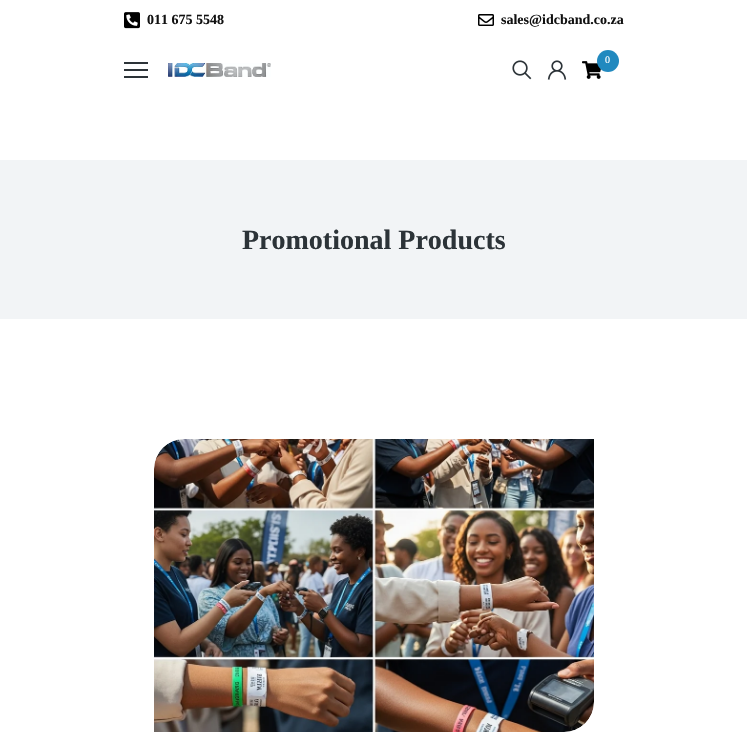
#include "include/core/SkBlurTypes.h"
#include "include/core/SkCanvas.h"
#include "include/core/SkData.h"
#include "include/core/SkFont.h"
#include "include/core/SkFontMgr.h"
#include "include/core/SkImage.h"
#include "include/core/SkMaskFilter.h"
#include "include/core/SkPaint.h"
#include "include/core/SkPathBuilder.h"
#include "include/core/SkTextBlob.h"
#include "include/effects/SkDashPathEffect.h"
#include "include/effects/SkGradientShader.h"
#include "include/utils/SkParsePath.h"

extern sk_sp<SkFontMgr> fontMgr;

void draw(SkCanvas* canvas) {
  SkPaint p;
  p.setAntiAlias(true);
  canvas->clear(SK_ColorWHITE);
  canvas->drawImageRect(SkImages::DeferredFromEncodedData(SkData::MakeFromFileName("images/1.png")), SkRect::MakeLTRB(124, 12, 140, 29), SkSamplingOptions());
  canvas->drawImageRect(SkImages::DeferredFromEncodedData(SkData::MakeFromFileName("images/2.png")), SkRect::MakeLTRB(478, 14, 494, 26), SkSamplingOptions());
  canvas->drawImageRect(SkImages::DeferredFromEncodedData(SkData::MakeFromFileName("images/3.png")), SkRect::MakeLTRB(512, 60, 532, 80), SkSamplingOptions());
  canvas->drawImageRect(SkImages::DeferredFromEncodedData(SkData::MakeFromFileName("images/4.png")), SkRect::MakeLTRB(547, 60, 567, 80), SkSamplingOptions());
  canvas->drawImageRect(SkImages::DeferredFromEncodedData(SkData::MakeFromFileName("images/5.png")), SkRect::MakeLTRB(582, 61, 601, 79), SkSamplingOptions());
  p.setColor(SkColorSetRGB(33, 137, 191));
  canvas->drawCircle(608, 61, 11, p);
  p.setColor(SkColorSetRGB(44, 51, 56));
  canvas->drawRect(SkRect::MakeLTRB(124, 62, 148, 64), p);
  canvas->drawRect(SkRect::MakeLTRB(124, 69, 148, 71), p);
  canvas->drawRect(SkRect::MakeLTRB(124, 76, 148, 78), p);
  canvas->drawImageRect(SkImages::DeferredFromEncodedData(SkData::MakeFromFileName("images/6.png")), SkRect::MakeLTRB(168, 63, 271, 77), SkSamplingOptions());
  p.setColor(SkColorSetRGB(242, 244, 246));
  canvas->drawRect(SkRect::MakeLTRB(0, 160, 747, 319), p);
  p.setColor(SkColorSetRGB(248, 248, 248));
  canvas->drawPath(SkPathBuilder().moveTo(184, 439).lineTo(594, 439).lineTo(594, 702).cubicTo(594, 718.5f, 580.5f, 732, 564, 732).lineTo(154, 732).lineTo(154, 469).cubicTo(154, 452.5f, 167.5f, 439, 184, 439).close().detach(), p);
  canvas->drawImageRect(SkImages::DeferredFromEncodedData(SkData::MakeFromFileName("images/7.png")), SkRect::MakeLTRB(154, 439, 594, 732), SkSamplingOptions());
  SkFont font1(fontMgr->matchFamilyStyle("Liberation Serif", SkFontStyle::Bold()), 14);
  font1.setSubpixel(true);
  p.setColor(SkColorSetRGB(17, 17, 17));
  canvas->drawString("011 675 5548", 147, 24, font1, p);
  canvas->drawString("sales@idcband.co.za", 501, 24, font1, p);
  SkFont font2(fontMgr->matchFamilyStyle("Liberation Serif", SkFontStyle::Normal()), 10);
  font2.setSubpixel(true);
  p.setColor(SK_ColorWHITE);
  canvas->drawString("0", 605, 63, font2, p);
  SkFont font3(fontMgr->matchFamilyStyle("Liberation Serif", SkFontStyle::Bold()), 28);
  font3.setSubpixel(true);
  p.setColor(SkColorSetRGB(44, 51, 56));
  canvas->drawString("Promotional Products", 242, 249, font3, p);
}
